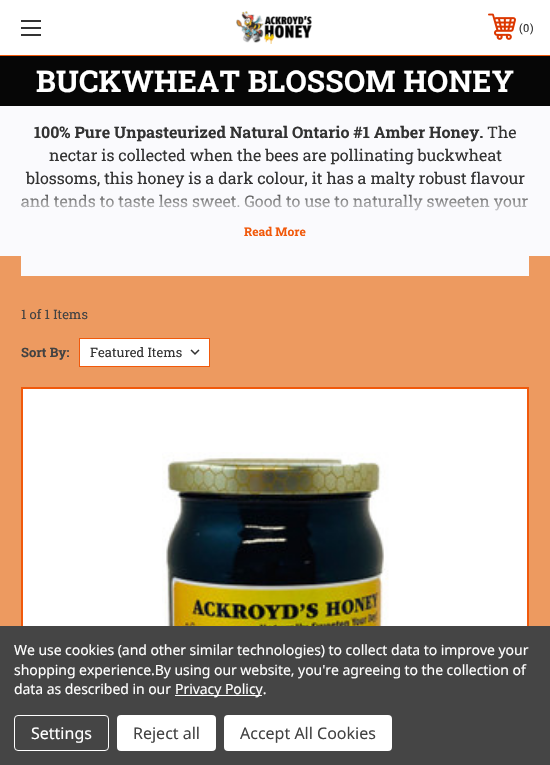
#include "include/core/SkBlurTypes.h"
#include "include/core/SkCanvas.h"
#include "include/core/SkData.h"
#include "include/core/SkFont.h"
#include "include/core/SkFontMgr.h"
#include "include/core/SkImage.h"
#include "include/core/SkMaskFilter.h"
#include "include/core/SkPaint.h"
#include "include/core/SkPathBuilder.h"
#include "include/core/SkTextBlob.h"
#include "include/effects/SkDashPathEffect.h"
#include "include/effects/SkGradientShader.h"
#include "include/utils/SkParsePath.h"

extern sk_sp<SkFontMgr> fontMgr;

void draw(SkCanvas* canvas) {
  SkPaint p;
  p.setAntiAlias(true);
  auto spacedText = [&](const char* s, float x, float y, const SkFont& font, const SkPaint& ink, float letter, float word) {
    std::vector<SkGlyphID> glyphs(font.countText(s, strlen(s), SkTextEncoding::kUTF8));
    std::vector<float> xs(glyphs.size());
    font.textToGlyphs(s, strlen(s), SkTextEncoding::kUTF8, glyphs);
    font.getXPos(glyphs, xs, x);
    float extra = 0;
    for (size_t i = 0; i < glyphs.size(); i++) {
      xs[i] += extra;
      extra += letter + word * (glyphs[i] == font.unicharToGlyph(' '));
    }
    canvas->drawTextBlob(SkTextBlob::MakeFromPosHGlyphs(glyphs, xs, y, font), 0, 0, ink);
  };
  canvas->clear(SkColorSetRGB(237, 154, 96));
  p.setColor(SK_ColorWHITE);
  canvas->drawRect(SkRect::MakeLTRB(0, 0, 550, 55), p);
  p.setColor(SkColorSetRGB(241, 89, 11));
  canvas->drawRect(SkRect::MakeLTRB(0, 55, 550, 56), p);
  p.setColor(SkColorSetRGB(51, 51, 51));
  canvas->drawRect(SkRect::MakeLTRB(21, 27, 41, 29), p);
  canvas->drawRect(SkRect::MakeLTRB(21, 20, 41, 22), p);
  canvas->drawRect(SkRect::MakeLTRB(21, 34, 41, 36), p);
  canvas->drawImageRect(SkImages::DeferredFromEncodedData(SkData::MakeFromFileName("images/1.png")), SkRect::MakeLTRB(236, 11, 312, 44), SkSamplingOptions());
  canvas->drawImageRect(SkImages::DeferredFromEncodedData(SkData::MakeFromFileName("images/2.png")), SkRect::MakeLTRB(488, 13, 516, 40), SkSamplingOptions());
  p.setColor(SkColorSetRGB(6, 6, 6));
  canvas->drawRect(SkRect::MakeLTRB(0, 56, 550, 106), p);
  p.setColor(SkColorSetRGB(250, 250, 253));
  canvas->drawRect(SkRect::MakeLTRB(0, 106, 550, 256), p);
  canvas->drawRect(SkRect::MakeLTRB(21, 256, 529, 276), p);
  p.setColor(SK_ColorWHITE);
  canvas->drawRect(SkRect::MakeLTRB(80, 339, 209, 366), p);
  canvas->drawImageRect(SkImages::DeferredFromEncodedData(SkData::MakeFromFileName("images/3.png")), SkRect::MakeLTRB(190, 349, 200, 355), SkSamplingOptions());
  p.setStyle(SkPaint::kStroke_Style);
  p.setStrokeWidth(1);
  p.setColor(SkColorSetRGB(241, 89, 11));
  canvas->drawRect(SkRect::MakeLTRB(79.5f, 338.5f, 209.5f, 366.5f), p);
  p.setStyle(SkPaint::kFill_Style);
  p.setColor(SK_ColorWHITE);
  canvas->drawRect(SkRect::MakeLTRB(23, 389, 527, 626), p);
  p.setStyle(SkPaint::kStroke_Style);
  p.setStrokeWidth(2);
  p.setColor(SkColorSetRGB(241, 89, 11));
  canvas->drawRect(SkRect::MakeLTRB(22, 388, 528, 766), p);
  canvas->drawImageRect(SkImages::DeferredFromEncodedData(SkData::MakeFromFileName("images/4.png")), SkRect::MakeLTRB(162, 452, 389, 626), SkSamplingOptions());
  p.setStyle(SkPaint::kFill_Style);
  p.setColor(SkColorSetRGB(69, 69, 69));
  canvas->drawRect(SkRect::MakeLTRB(0, 626, 550, 765), p);
  p.setColor(SK_ColorWHITE);
  canvas->drawRect(SkRect::MakeLTRB(175, 695, 262, 696), p);
  p.setStyle(SkPaint::kStroke_Style);
  p.setStrokeWidth(1);
  canvas->drawRoundRect(SkRect::MakeLTRB(14.5f, 715.5f, 108.5f, 750.5f), 3.5f, 3.5f, p);
  p.setStyle(SkPaint::kFill_Style);
  canvas->drawRoundRect(SkRect::MakeLTRB(117, 715, 216, 751), 4, 4, p);
  canvas->drawRoundRect(SkRect::MakeLTRB(224, 715, 392, 751), 4, 4, p);
  SkFont font1(fontMgr->matchFamilyStyle("Roboto Slab", SkFontStyle::Normal()), 11);
  font1.setSubpixel(true);
  p.setColor(SkColorSetRGB(51, 51, 51));
  canvas->drawString("(", 519, 32, font1, p);
  canvas->drawString("0", 523, 32, font1, p);
  canvas->drawString(")", 530, 32, font1, p);
  SkFont font2(fontMgr->matchFamilyStyle("Roboto Slab", SkFontStyle::Bold()), 30);
  font2.setSubpixel(true);
  p.setColor(SK_ColorWHITE);
  spacedText("BUCKWHEAT BLOSSOM HONEY", 36, 92, font2, p, 0.25f, 0);
  SkFont font3(fontMgr->matchFamilyStyle("Roboto Slab", SkFontStyle::Bold()), 16);
  font3.setSubpixel(true);
  p.setColor(SkColorSetRGB(51, 51, 51));
  canvas->drawString("100% Pure Unpasteurized Natural Ontario #1 Amber Honey.", 34, 138, font3, p);
  SkFont font4(fontMgr->matchFamilyStyle("Roboto Slab", SkFontStyle::Normal()), 16);
  font4.setSubpixel(true);
  canvas->drawString("The", 487, 138, font4, p);
  canvas->drawString("nectar is collected when the bees are pollinating buckwheat", 49, 161, font4, p);
  canvas->drawString("blossoms, this honey is a dark colour, it has a malty robust flavour", 26, 184, font4, p);
  canvas->drawString("and tends to taste less sweet. Good to use to naturally sweeten your", 21, 207, font4, p);
  {
    const SkColor colors[] = {SkColorSetARGB(10, 250, 250, 253), SkColorSetARGB(204, 250, 250, 253)};
    const float stops[] = {0, 1};
    const SkPoint ends[] = {{275, 191}, {275, 211}};
    p.setShader(SkGradientShader::MakeLinear(ends, colors, stops, 2, SkTileMode::kClamp));
    p.setAlpha(255);
  }
  canvas->drawRect(SkRect::MakeLTRB(22, 194, 529, 211), p);
  SkFont font5(fontMgr->matchFamilyStyle("Roboto Slab", SkFontStyle::Bold()), 12);
  font5.setSubpixel(true);
  p.setShader(nullptr);
  p.setColor(SkColorSetRGB(241, 89, 11));
  canvas->drawString("Read More", 244, 236, font5, p);
  SkFont font6(fontMgr->matchFamilyStyle("Roboto Slab", SkFontStyle::Normal()), 13);
  font6.setSubpixel(true);
  p.setColor(SkColorSetRGB(66, 66, 66));
  canvas->drawString("1 of 1 Items", 21, 319, font6, p);
  SkFont font7(fontMgr->matchFamilyStyle("Roboto Slab", SkFontStyle::Bold()), 13);
  font7.setSubpixel(true);
  canvas->drawString("Sort By:", 21, 357, font7, p);
  p.setColor(SkColorSetRGB(51, 51, 51));
  canvas->drawString("Featured Items", 90, 357, font6, p);
  SkFont font8(fontMgr->matchFamilyStyle("Noto Sans", SkFontStyle::Normal()), 14);
  font8.setSubpixel(true);
  p.setColor(SK_ColorWHITE);
  spacedText("We use cookies (and other similar technologies) to collect data to improve your", 14, 655, font8, p, -0.05f, 0);
  spacedText("shopping experience.By using our website, you're agreeing to the collection of", 14, 675, font8, p, -0.05f, 0);
  spacedText("data as described in our", 14, 694, font8, p, -0.05f, 0);
  spacedText("Privacy Policy.", 175, 694, font8, p, -0.05f, 0);
  SkFont font9(fontMgr->matchFamilyStyle("Noto Sans", SkFontStyle::Normal()), 16);
  font9.setSubpixel(true);
  canvas->drawString("Settings", 31, 739, font9, p);
  p.setColor(SkColorSetRGB(66, 66, 66));
  canvas->drawString("Reject all", 133, 739, font9, p);
  canvas->drawString("Accept All Cookies", 240, 739, font9, p);
}
